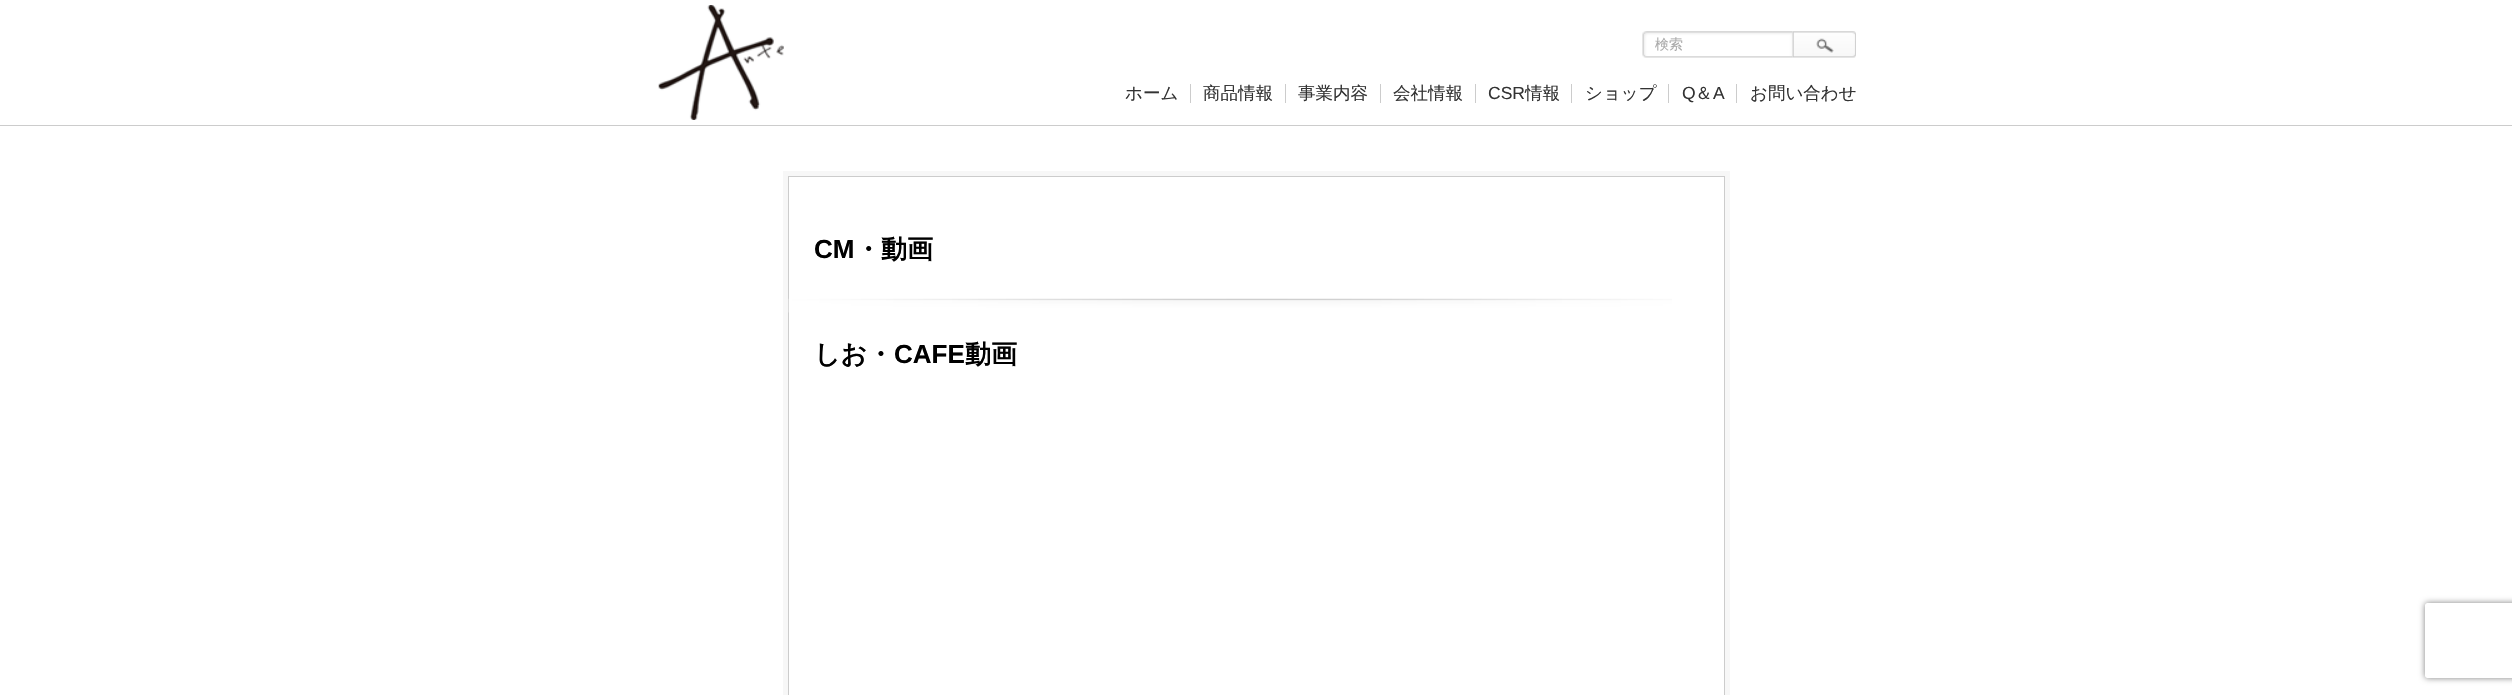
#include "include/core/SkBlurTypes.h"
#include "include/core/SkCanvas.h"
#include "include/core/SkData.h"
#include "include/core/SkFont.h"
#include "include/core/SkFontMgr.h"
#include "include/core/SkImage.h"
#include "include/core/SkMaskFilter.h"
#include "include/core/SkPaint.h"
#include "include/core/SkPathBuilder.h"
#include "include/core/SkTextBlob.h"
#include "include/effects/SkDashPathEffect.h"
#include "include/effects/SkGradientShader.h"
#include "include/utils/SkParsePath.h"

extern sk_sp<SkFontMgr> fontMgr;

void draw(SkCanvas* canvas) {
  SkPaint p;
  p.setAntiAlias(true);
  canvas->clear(SK_ColorWHITE);
  p.setColor(SkColorSetRGB(204, 204, 204));
  canvas->drawRect(SkRect::MakeLTRB(0, 125, 2512, 126), p);
  canvas->drawImageRect(SkImages::DeferredFromEncodedData(SkData::MakeFromFileName("images/1.png")), SkRect::MakeLTRB(658, 5, 784, 120), SkSamplingOptions());
  canvas->drawImageRect(SkImages::DeferredFromEncodedData(SkData::MakeFromFileName("images/2.png")), SkRect::MakeLTRB(1642, 31, 1793, 58), SkSamplingOptions());
  canvas->drawImageRect(SkImages::DeferredFromEncodedData(SkData::MakeFromFileName("images/3.png")), SkRect::MakeLTRB(1792, 31, 1856, 58), SkSamplingOptions());
  canvas->drawRect(SkRect::MakeLTRB(1190, 84, 1191, 103), p);
  canvas->drawRect(SkRect::MakeLTRB(1285, 84, 1286, 103), p);
  canvas->drawRect(SkRect::MakeLTRB(1380, 84, 1381, 103), p);
  canvas->drawRect(SkRect::MakeLTRB(1475, 84, 1476, 103), p);
  canvas->drawRect(SkRect::MakeLTRB(1571, 84, 1572, 103), p);
  canvas->drawRect(SkRect::MakeLTRB(1668, 84, 1669, 103), p);
  canvas->drawRect(SkRect::MakeLTRB(1736, 84, 1737, 103), p);
  p.setStyle(SkPaint::kStroke_Style);
  p.setStrokeWidth(5);
  p.setColor(SkColorSetRGB(247, 247, 247));
  canvas->drawRect(SkRect::MakeLTRB(785.5f, 173.5f, 1727.5f, 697.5f), p);
  p.setStrokeWidth(1);
  p.setColor(SkColorSetRGB(204, 204, 204));
  canvas->drawRect(SkRect::MakeLTRB(788.5f, 176.5f, 1724.5f, 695.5f), p);
  canvas->drawImageRect(SkImages::DeferredFromEncodedData(SkData::MakeFromFileName("images/4.png")), SkRect::MakeLTRB(788, 298, 1672, 313), SkSamplingOptions());
  canvas->save();
  canvas->clipPath(SkPathBuilder(SkPathFillType::kEvenOdd).moveTo(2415, 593).lineTo(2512, 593).lineTo(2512, 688).lineTo(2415, 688).close().moveTo(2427.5f, 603).lineTo(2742.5f, 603).cubicTo(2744, 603, 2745, 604, 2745, 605.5f).lineTo(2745, 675.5f).cubicTo(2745, 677, 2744, 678, 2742.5f, 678).lineTo(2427.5f, 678).cubicTo(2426, 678, 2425, 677, 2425, 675.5f).lineTo(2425, 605.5f).cubicTo(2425, 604, 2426, 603, 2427.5f, 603).close().detach(), true);
  p.setStyle(SkPaint::kFill_Style);
  p.setColor(SkColorSetRGB(128, 128, 128));
  p.setMaskFilter(SkMaskFilter::MakeBlur(kNormal_SkBlurStyle, 3));
  canvas->drawRoundRect(SkRect::MakeLTRB(2425, 603, 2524, 678), 2.5f, 2.5f, p);
  p.setMaskFilter(nullptr);
  canvas->restore();
  SkFont font1(fontMgr->matchFamilyStyle("WenQuanYi Zen Hei", SkFontStyle(500, SkFontStyle::kNormal_Width, SkFontStyle::kUpright_Slant)), 14);
  font1.setSubpixel(true);
  p.setColor(SkColorSetRGB(170, 170, 170));
  canvas->drawString("検索", 1655, 49, font1, p);
  SkFont font2(fontMgr->matchFamilyStyle("WenQuanYi Zen Hei", SkFontStyle(500, SkFontStyle::kNormal_Width, SkFontStyle::kUpright_Slant)), 17.5f);
  font2.setSubpixel(true);
  p.setColor(SkColorSetRGB(51, 51, 51));
  canvas->drawString("ホーム", 1125, 99, font2, p);
  canvas->drawString("商品情報", 1203, 99, font2, p);
  canvas->drawString("事業内容", 1298, 99, font2, p);
  canvas->drawString("会社情報", 1393, 99, font2, p);
  SkFont font3(fontMgr->matchFamilyStyle("Liberation Sans", SkFontStyle::Normal()), 17.5f);
  font3.setSubpixel(true);
  canvas->drawString("CSR", 1488, 99, font3, p);
  canvas->drawString("情報", 1525, 99, font2, p);
  canvas->drawString("ショップ", 1585, 99, font2, p);
  canvas->drawString("Q", 1682, 99, font3, p);
  canvas->drawString("＆", 1695, 99, font2, p);
  canvas->drawString("A", 1713, 99, font3, p);
  canvas->drawString("お問い合わせ", 1750, 99, font2, p);
  SkFont font4(fontMgr->matchFamilyStyle("Liberation Sans", SkFontStyle::Bold()), 26);
  font4.setSubpixel(true);
  p.setColor(SK_ColorBLACK);
  canvas->drawString("CM", 814, 258, font4, p);
  SkFont font5(fontMgr->matchFamilyStyle("WenQuanYi Zen Hei", SkFontStyle::Bold()), 26);
  font5.setSubpixel(true);
  canvas->drawString("・動画", 855, 258, font5, p);
  canvas->drawString("しお・", 814, 363, font5, p);
  canvas->drawString("CAFE", 894, 363, font4, p);
  canvas->drawString("動画", 965, 363, font5, p);
}
